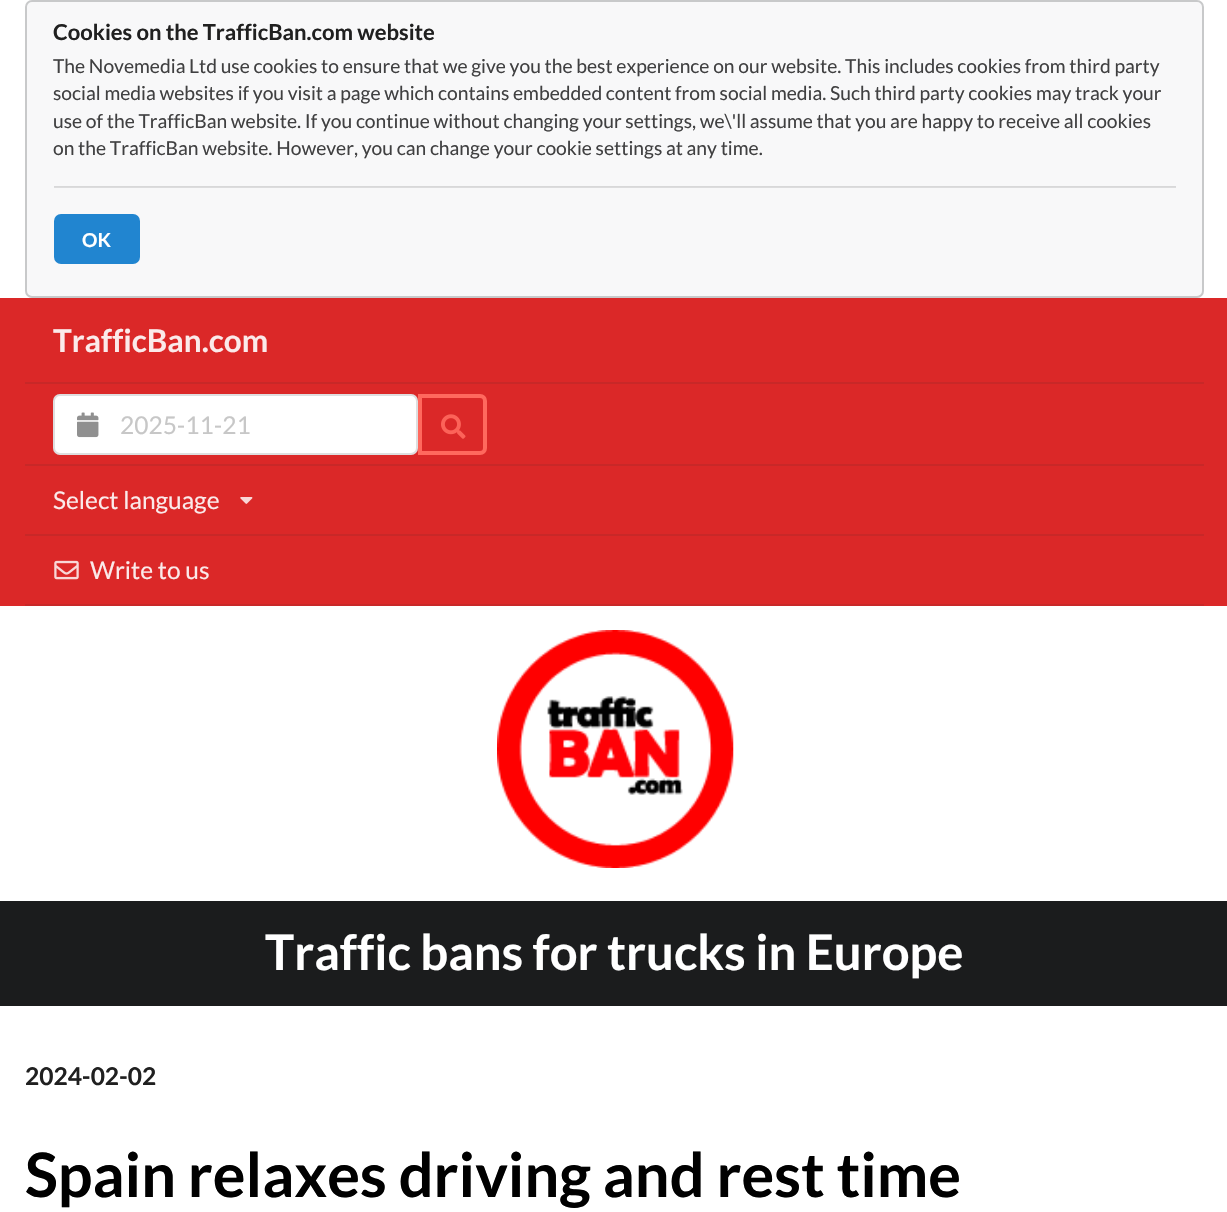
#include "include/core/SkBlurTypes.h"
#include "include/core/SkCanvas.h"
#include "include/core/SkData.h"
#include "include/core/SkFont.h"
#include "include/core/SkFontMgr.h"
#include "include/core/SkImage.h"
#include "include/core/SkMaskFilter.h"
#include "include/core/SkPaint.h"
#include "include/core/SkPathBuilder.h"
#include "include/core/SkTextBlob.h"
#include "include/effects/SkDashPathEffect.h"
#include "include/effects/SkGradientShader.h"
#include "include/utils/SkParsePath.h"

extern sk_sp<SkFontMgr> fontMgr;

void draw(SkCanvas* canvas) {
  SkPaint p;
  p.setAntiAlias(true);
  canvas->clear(SK_ColorWHITE);
  p.setColor(SkColorSetRGB(248, 248, 249));
  canvas->drawRoundRect(SkRect::MakeLTRB(25, 0, 1204, 298), 7, 7, p);
  p.setStyle(SkPaint::kStroke_Style);
  p.setStrokeWidth(2);
  p.setColor(SkColorSetARGB(56, 34, 36, 38));
  canvas->drawRoundRect(SkRect::MakeLTRB(26, 1, 1203, 297), 6, 6, p);
  p.setStyle(SkPaint::kFill_Style);
  p.setColor(SkColorSetRGB(216, 216, 217));
  canvas->drawRect(SkRect::MakeLTRB(54, 186, 1176, 187), p);
  p.setColor(SkColorSetRGB(220, 220, 221));
  canvas->drawRect(SkRect::MakeLTRB(54, 187, 1176, 188), p);
  p.setColor(SkColorSetRGB(33, 133, 208));
  canvas->drawRoundRect(SkRect::MakeLTRB(54, 214, 140, 264), 7, 7, p);
  p.setColor(SkColorSetRGB(219, 40, 40));
  canvas->drawRect(SkRect::MakeLTRB(0, 298, 1227, 606), p);
  p.setColor(SkColorSetRGB(200, 40, 40));
  canvas->drawRect(SkRect::MakeLTRB(25, 382, 1204, 384), p);
  p.setColor(SK_ColorWHITE);
  canvas->drawRoundRect(SkRect::MakeLTRB(53, 394, 418, 455), 7, 7, p);
  p.setStyle(SkPaint::kStroke_Style);
  p.setColor(SkColorSetARGB(38, 34, 36, 38));
  canvas->drawRoundRect(SkRect::MakeLTRB(54, 395, 417, 454), 6, 6, p);
  canvas->drawImageRect(SkImages::DeferredFromEncodedData(SkData::MakeFromFileName("images/1.png")), SkRect::MakeLTRB(77, 412, 99, 438), SkSamplingOptions());
  p.setStrokeWidth(4);
  p.setColor(SkColorSetRGB(255, 105, 94));
  canvas->drawPath(SkPathBuilder().moveTo(420, 396).lineTo(480, 396).cubicTo(483, 396, 485, 398, 485, 401).lineTo(485, 448).cubicTo(485, 451, 483, 453, 480, 453).lineTo(420, 453).close().detach(), p);
  canvas->drawImageRect(SkImages::DeferredFromEncodedData(SkData::MakeFromFileName("images/2.png")), SkRect::MakeLTRB(441, 414, 466, 439), SkSamplingOptions());
  p.setStyle(SkPaint::kFill_Style);
  p.setColor(SkColorSetRGB(200, 40, 40));
  canvas->drawRect(SkRect::MakeLTRB(25, 464, 1204, 466), p);
  canvas->drawImageRect(SkImages::DeferredFromEncodedData(SkData::MakeFromFileName("images/3.png")), SkRect::MakeLTRB(240, 497, 253, 504), SkSamplingOptions());
  canvas->drawRect(SkRect::MakeLTRB(25, 534, 1204, 536), p);
  canvas->drawImageRect(SkImages::DeferredFromEncodedData(SkData::MakeFromFileName("images/4.png")), SkRect::MakeLTRB(54, 560, 79, 580), SkSamplingOptions());
  canvas->drawRect(SkRect::MakeLTRB(25, 604, 1204, 606), p);
  canvas->drawImageRect(SkImages::DeferredFromEncodedData(SkData::MakeFromFileName("images/5.png")), SkRect::MakeLTRB(497, 630, 734, 868), SkSamplingOptions());
  p.setColor(SkColorSetRGB(27, 28, 29));
  canvas->drawRect(SkRect::MakeLTRB(0, 901, 1227, 1006), p);
  SkFont font1(fontMgr->matchFamilyStyle("Lato", SkFontStyle::Bold()), 22);
  font1.setSubpixel(true);
  p.setColor(SkColorSetRGB(32, 32, 32));
  canvas->drawString("Cookies on the TrafficBan.com website", 53, 40, font1, p);
  SkFont font2(fontMgr->matchFamilyStyle("Lato", SkFontStyle::Normal()), 19.25f);
  font2.setSubpixel(true);
  p.setColor(SkColorSetRGB(64, 64, 65));
  canvas->drawString("The Novemedia Ltd use cookies to ensure that we give you the best experience on our website. This includes cookies from third party", 53, 73, font2, p);
  canvas->drawString("social media websites if you visit a page which contains embedded content from social media. Such third party cookies may track your", 53, 100, font2, p);
  canvas->drawString("use of the TrafficBan website. If you continue without changing your settings, we\\'ll assume that you are happy to receive all cookies", 53, 128, font2, p);
  canvas->drawString("on the TrafficBan website. However, you can change your cookie settings at any time.", 53, 155, font2, p);
  SkFont font3(fontMgr->matchFamilyStyle("Lato", SkFontStyle::Bold()), 19.25f);
  font3.setSubpixel(true);
  p.setColor(SK_ColorWHITE);
  canvas->drawString("OK", 82, 247, font3, p);
  SkFont font4(fontMgr->matchFamilyStyle("Lato", SkFontStyle::Bold()), 31.5f);
  font4.setSubpixel(true);
  p.setColor(SkColorSetRGB(251, 234, 234));
  canvas->drawString("TrafficBan.com", 53, 352, font4, p);
  SkFont font5(fontMgr->matchFamilyStyle("Lato", SkFontStyle::Normal()), 24.5f);
  font5.setSubpixel(true);
  p.setColor(SkColorSetRGB(199, 199, 199));
  canvas->drawString("2025-11-21", 120, 434, font5, p);
  p.setColor(SkColorSetRGB(251, 234, 234));
  canvas->drawString("Select language", 53, 509, font5, p);
  canvas->drawString("Write to us", 90, 579, font5, p);
  SkFont font6(fontMgr->matchFamilyStyle("Lato", SkFontStyle::Bold()), 49);
  font6.setSubpixel(true);
  p.setColor(SK_ColorWHITE);
  canvas->drawString("Traffic bans for trucks in Europe", 265, 970, font6, p);
  SkFont font7(fontMgr->matchFamilyStyle("Lato", SkFontStyle::Bold()), 24.5f);
  font7.setSubpixel(true);
  p.setColor(SkColorSetRGB(32, 32, 32));
  canvas->drawString("2024-02-02", 25, 1085, font7, p);
  SkFont font8(fontMgr->matchFamilyStyle("Lato", SkFontStyle::Bold()), 61.25f);
  font8.setSubpixel(true);
  p.setColor(SK_ColorBLACK);
  canvas->drawString("Spain relaxes driving and rest time", 25, 1197, font8, p);
}
